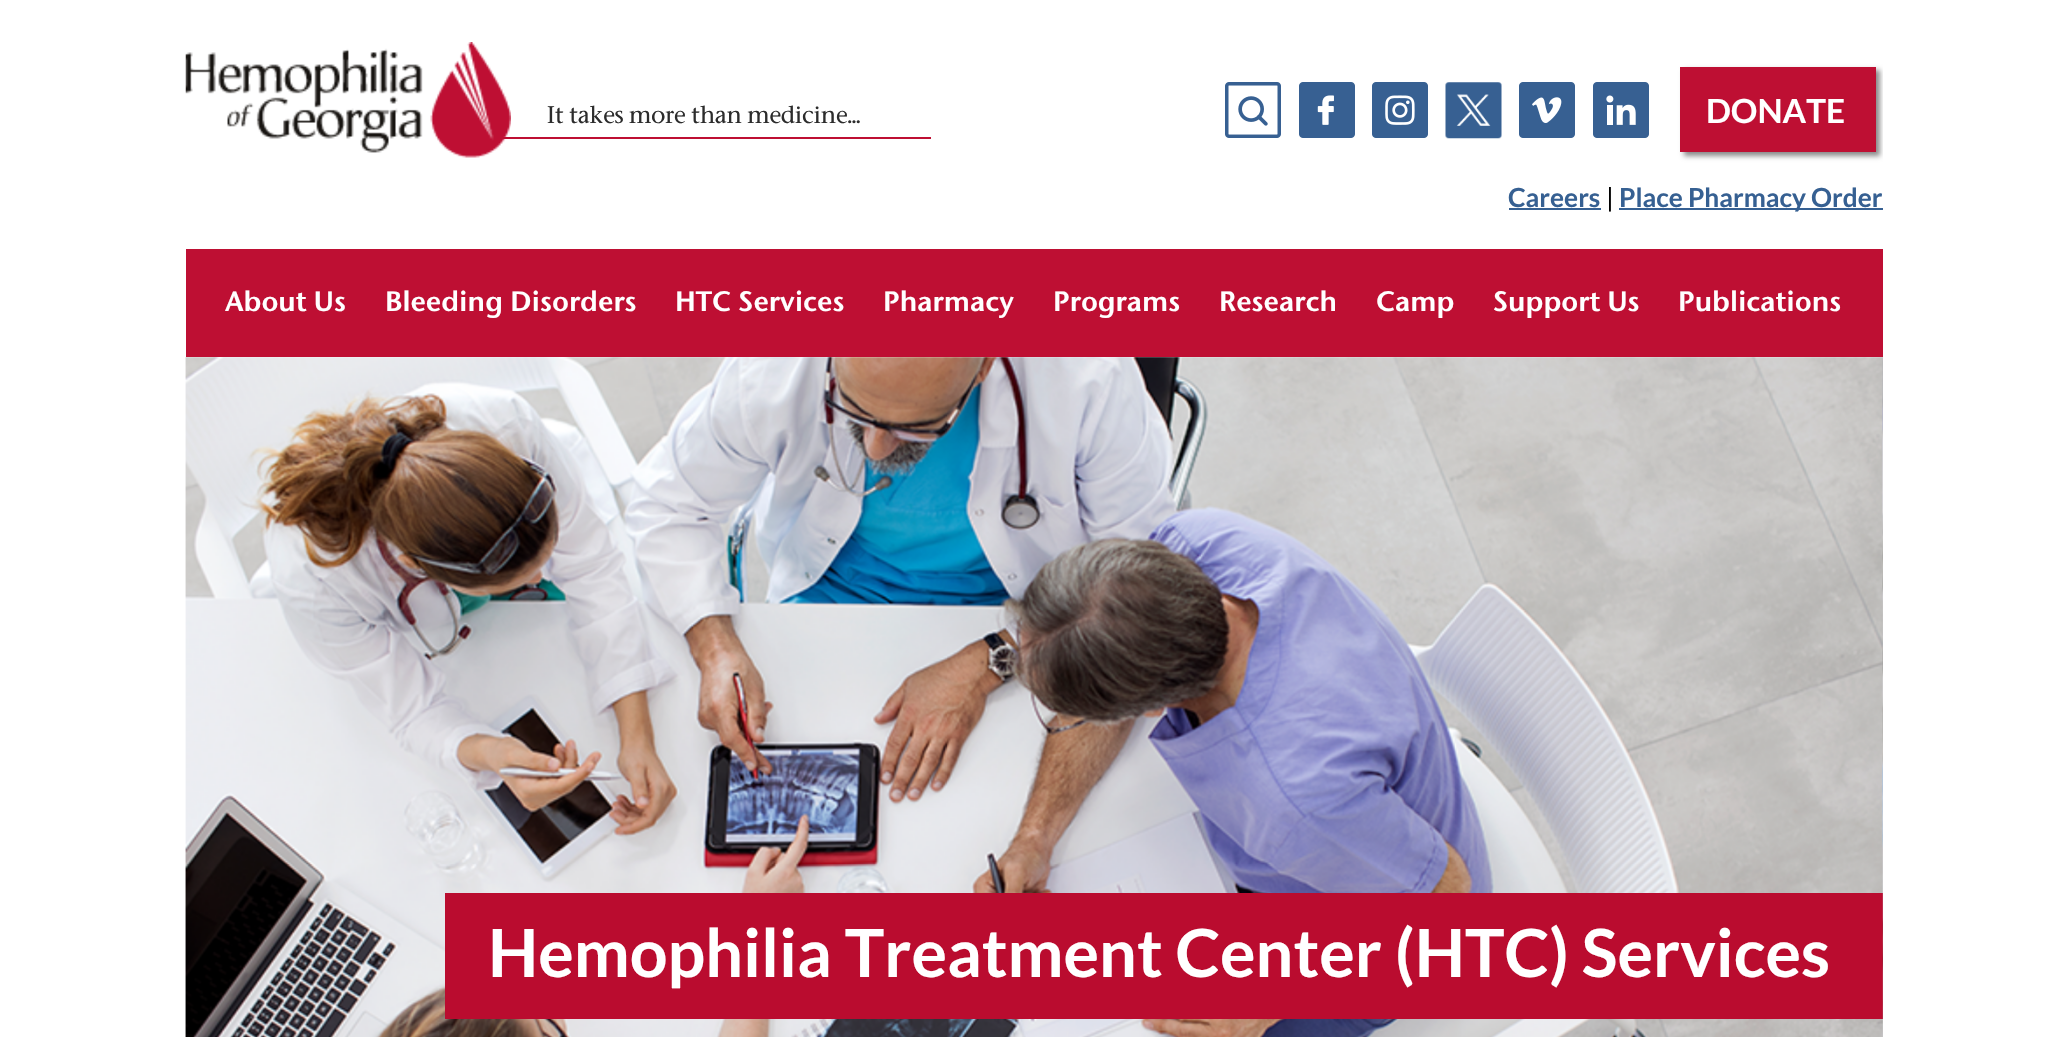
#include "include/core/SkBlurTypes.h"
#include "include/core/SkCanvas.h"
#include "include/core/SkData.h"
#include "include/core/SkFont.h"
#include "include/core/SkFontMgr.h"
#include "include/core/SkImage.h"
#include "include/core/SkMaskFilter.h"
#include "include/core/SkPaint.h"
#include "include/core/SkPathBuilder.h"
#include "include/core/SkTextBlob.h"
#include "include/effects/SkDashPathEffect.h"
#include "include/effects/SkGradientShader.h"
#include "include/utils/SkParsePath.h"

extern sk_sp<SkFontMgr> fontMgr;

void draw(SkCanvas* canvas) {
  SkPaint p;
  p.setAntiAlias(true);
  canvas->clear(SK_ColorWHITE);
  p.setColor(SkColorSetRGB(190, 15, 51));
  canvas->drawRect(SkRect::MakeLTRB(502, 137, 931, 139), p);
  canvas->drawImageRect(SkImages::DeferredFromEncodedData(SkData::MakeFromFileName("images/1.png")), SkRect::MakeLTRB(185, 42, 511, 158), SkSamplingOptions());
  canvas->drawImageRect(SkImages::DeferredFromEncodedData(SkData::MakeFromFileName("images/2.png")), SkRect::MakeLTRB(1225, 82, 1281, 138), SkSamplingOptions());
  canvas->drawImageRect(SkImages::DeferredFromEncodedData(SkData::MakeFromFileName("images/3.png")), SkRect::MakeLTRB(1299, 82, 1355, 138), SkSamplingOptions());
  canvas->drawImageRect(SkImages::DeferredFromEncodedData(SkData::MakeFromFileName("images/4.png")), SkRect::MakeLTRB(1372, 82, 1428, 138), SkSamplingOptions());
  canvas->drawImageRect(SkImages::DeferredFromEncodedData(SkData::MakeFromFileName("images/5.png")), SkRect::MakeLTRB(1445, 82, 1502, 139), SkSamplingOptions());
  canvas->drawImageRect(SkImages::DeferredFromEncodedData(SkData::MakeFromFileName("images/6.png")), SkRect::MakeLTRB(1519, 82, 1575, 138), SkSamplingOptions());
  canvas->drawImageRect(SkImages::DeferredFromEncodedData(SkData::MakeFromFileName("images/7.png")), SkRect::MakeLTRB(1593, 82, 1649, 138), SkSamplingOptions());
  canvas->save();
  canvas->clipRect(SkRect::MakeLTRB(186, 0, 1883, 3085));
  p.setColor(SkColorSetRGB(139, 139, 139));
  p.setMaskFilter(SkMaskFilter::MakeBlur(kNormal_SkBlurStyle, 2.5f));
  canvas->drawRect(SkRect::MakeLTRB(1684, 70, 1880, 156), p);
  p.setMaskFilter(nullptr);
  canvas->restore();
  p.setColor(SkColorSetRGB(190, 15, 51));
  canvas->drawRect(SkRect::MakeLTRB(1680, 67, 1876, 152), p);
  p.setColor(SkColorSetRGB(54, 96, 146));
  canvas->drawRect(SkRect::MakeLTRB(1509, 208, 1601, 210), p);
  canvas->drawRect(SkRect::MakeLTRB(1619, 208, 1883, 210), p);
  p.setColor(SkColorSetRGB(190, 15, 51));
  canvas->drawRect(SkRect::MakeLTRB(186, 249, 1883, 357), p);
  canvas->drawImageRect(SkImages::DeferredFromEncodedData(SkData::MakeFromFileName("images/8.png")), SkRect::MakeLTRB(185, 357, 1883, 1037), SkSamplingOptions());
  p.setColor(SkColorSetRGB(186, 12, 47));
  canvas->drawRect(SkRect::MakeLTRB(445, 893, 1883, 1019), p);
  canvas->drawImageRect(SkImages::DeferredFromEncodedData(SkData::MakeFromFileName("images/9.png")), SkRect::MakeLTRB(1882, 357, 1883, 1037), SkSamplingOptions());
  SkFont font1(fontMgr->matchFamilyStyle("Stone", SkFontStyle::Normal()), 22.75f);
  font1.setSubpixel(true);
  p.setColor(SkColorSetRGB(44, 44, 44));
  canvas->drawString("It takes more than medicine...", 547, 123, font1, p);
  SkFont font2(fontMgr->matchFamilyStyle("Lato", SkFontStyle::Bold()), 33.25f);
  font2.setSubpixel(true);
  p.setColor(SK_ColorWHITE);
  canvas->drawString("DONATE", 1706, 123, font2, p);
  SkFont font3(fontMgr->matchFamilyStyle("Lato", SkFontStyle::Bold()), 26.25f);
  font3.setSubpixel(true);
  p.setColor(SkColorSetRGB(54, 96, 146));
  canvas->drawString("Careers", 1508, 207, font3, p);
  SkFont font4(fontMgr->matchFamilyStyle("Lato", SkFontStyle::Normal()), 26.25f);
  font4.setSubpixel(true);
  p.setColor(SK_ColorBLACK);
  canvas->drawString("|", 1606, 207, font4, p);
  p.setColor(SkColorSetRGB(54, 96, 146));
  canvas->drawString("Place Pharmacy Order", 1619, 207, font3, p);
  SkFont font5(fontMgr->matchFamilyStyle("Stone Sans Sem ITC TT", SkFontStyle::Normal()), 28);
  font5.setSubpixel(true);
  p.setColor(SK_ColorWHITE);
  canvas->drawString("About Us", 225, 311, font5, p);
  canvas->drawString("Bleeding Disorders", 385, 311, font5, p);
  canvas->drawString("HTC Services", 675, 311, font5, p);
  canvas->drawString("Pharmacy", 883, 311, font5, p);
  canvas->drawString("Programs", 1053, 311, font5, p);
  canvas->drawString("Research", 1219, 311, font5, p);
  canvas->drawString("Camp", 1376, 311, font5, p);
  canvas->drawString("Support Us", 1493, 311, font5, p);
  canvas->drawString("Publications", 1678, 311, font5, p);
  SkFont font6(fontMgr->matchFamilyStyle("Lato", SkFontStyle::Bold()), 66.5f);
  font6.setSubpixel(true);
  canvas->drawString("Hemophilia Treatment Center (HTC) Services", 488, 977, font6, p);
}
